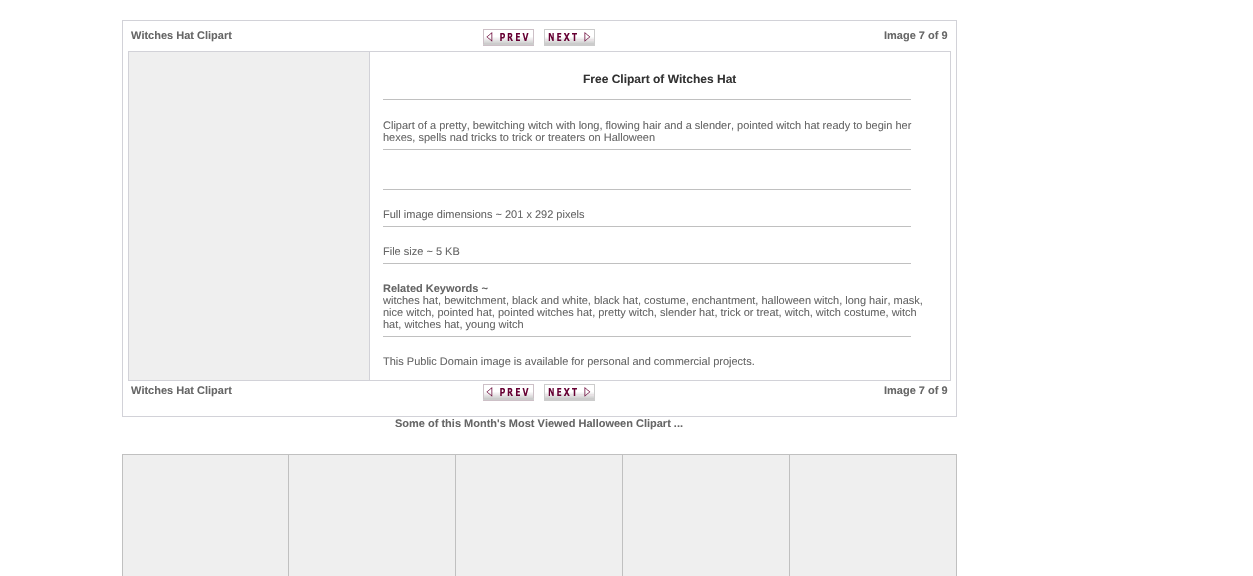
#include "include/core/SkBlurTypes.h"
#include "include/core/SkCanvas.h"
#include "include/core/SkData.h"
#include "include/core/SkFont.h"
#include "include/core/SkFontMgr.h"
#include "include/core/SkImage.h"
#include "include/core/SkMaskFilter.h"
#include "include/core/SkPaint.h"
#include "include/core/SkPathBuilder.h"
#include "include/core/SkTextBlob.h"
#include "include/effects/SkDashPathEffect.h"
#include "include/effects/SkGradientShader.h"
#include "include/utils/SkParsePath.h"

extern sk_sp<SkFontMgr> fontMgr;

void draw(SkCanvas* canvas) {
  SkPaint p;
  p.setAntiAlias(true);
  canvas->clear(SK_ColorWHITE);
  p.setColor(SkColorSetRGB(210, 210, 216));
  canvas->drawRect(SkRect::MakeLTRB(122, 20, 957, 21), p);
  canvas->drawRect(SkRect::MakeLTRB(956, 20, 957, 417), p);
  canvas->drawRect(SkRect::MakeLTRB(122, 416, 957, 417), p);
  canvas->drawRect(SkRect::MakeLTRB(122, 20, 123, 417), p);
  canvas->drawImageRect(SkImages::DeferredFromEncodedData(SkData::MakeFromFileName("images/1.png")), SkRect::MakeLTRB(483, 29, 534, 46), SkSamplingOptions());
  canvas->drawImageRect(SkImages::DeferredFromEncodedData(SkData::MakeFromFileName("images/2.png")), SkRect::MakeLTRB(544, 29, 595, 46), SkSamplingOptions());
  canvas->drawRect(SkRect::MakeLTRB(128, 51, 951, 52), p);
  canvas->drawRect(SkRect::MakeLTRB(950, 51, 951, 381), p);
  canvas->drawRect(SkRect::MakeLTRB(128, 380, 951, 381), p);
  canvas->drawRect(SkRect::MakeLTRB(128, 51, 129, 381), p);
  p.setColor(SkColorSetRGB(239, 239, 239));
  canvas->drawRect(SkRect::MakeLTRB(129, 52, 369, 380), p);
  p.setColor(SkColorSetRGB(210, 210, 216));
  canvas->drawRect(SkRect::MakeLTRB(369, 51, 370, 381), p);
  p.setColor(SkColorSetRGB(192, 192, 192));
  canvas->drawRect(SkRect::MakeLTRB(383, 99, 911, 100), p);
  canvas->drawRect(SkRect::MakeLTRB(383, 149, 911, 150), p);
  canvas->drawRect(SkRect::MakeLTRB(383, 189, 911, 190), p);
  canvas->drawRect(SkRect::MakeLTRB(383, 226, 911, 227), p);
  canvas->drawRect(SkRect::MakeLTRB(383, 263, 911, 264), p);
  canvas->drawRect(SkRect::MakeLTRB(383, 336, 911, 337), p);
  canvas->drawImageRect(SkImages::DeferredFromEncodedData(SkData::MakeFromFileName("images/1.png")), SkRect::MakeLTRB(483, 384, 534, 401), SkSamplingOptions());
  canvas->drawImageRect(SkImages::DeferredFromEncodedData(SkData::MakeFromFileName("images/2.png")), SkRect::MakeLTRB(544, 384, 595, 401), SkSamplingOptions());
  canvas->drawRect(SkRect::MakeLTRB(122, 454, 957, 455), p);
  canvas->drawRect(SkRect::MakeLTRB(956, 454, 957, 576), p);
  canvas->drawRect(SkRect::MakeLTRB(122, 454, 123, 576), p);
  p.setColor(SkColorSetRGB(239, 239, 239));
  canvas->drawRect(SkRect::MakeLTRB(123, 455, 288, 576), p);
  canvas->drawRect(SkRect::MakeLTRB(289, 455, 455, 576), p);
  p.setColor(SkColorSetRGB(192, 192, 192));
  canvas->drawRect(SkRect::MakeLTRB(288, 454, 289, 576), p);
  p.setColor(SkColorSetRGB(239, 239, 239));
  canvas->drawRect(SkRect::MakeLTRB(456, 455, 622, 576), p);
  p.setColor(SkColorSetRGB(192, 192, 192));
  canvas->drawRect(SkRect::MakeLTRB(455, 454, 456, 576), p);
  p.setColor(SkColorSetRGB(239, 239, 239));
  canvas->drawRect(SkRect::MakeLTRB(623, 455, 789, 576), p);
  p.setColor(SkColorSetRGB(192, 192, 192));
  canvas->drawRect(SkRect::MakeLTRB(622, 454, 623, 576), p);
  p.setColor(SkColorSetRGB(239, 239, 239));
  canvas->drawRect(SkRect::MakeLTRB(790, 455, 956, 576), p);
  p.setColor(SkColorSetRGB(192, 192, 192));
  canvas->drawRect(SkRect::MakeLTRB(789, 454, 790, 576), p);
  SkFont font1(fontMgr->matchFamilyStyle("Liberation Sans", SkFontStyle::Bold()), 11);
  font1.setSubpixel(true);
  p.setColor(SkColorSetRGB(102, 102, 102));
  canvas->drawString("Witches Hat Clipart", 131, 39, font1, p);
  canvas->drawString("Image 7 of 9", 884, 39, font1, p);
  SkFont font2(fontMgr->matchFamilyStyle("Liberation Sans", SkFontStyle::Bold()), 12);
  font2.setSubpixel(true);
  p.setColor(SkColorSetRGB(51, 51, 51));
  canvas->drawString("Free Clipart of Witches Hat", 583, 83, font2, p);
  SkFont font3(fontMgr->matchFamilyStyle("Liberation Sans", SkFontStyle::Normal()), 11);
  font3.setSubpixel(true);
  p.setColor(SkColorSetRGB(102, 102, 102));
  canvas->drawString("Clipart of a pretty, bewitching witch with long, flowing hair and a slender, pointed witch hat ready to begin her", 383, 129, font3, p);
  canvas->drawString("hexes, spells nad tricks to trick or treaters on Halloween", 383, 141, font3, p);
  canvas->drawString("Full image dimensions ~ 201 x 292 pixels", 383, 218, font3, p);
  canvas->drawString("File size ~ 5 KB", 383, 255, font3, p);
  canvas->drawString("Related Keywords ~", 383, 292, font1, p);
  canvas->drawString("witches hat, bewitchment, black and white, black hat, costume, enchantment, halloween witch, long hair, mask,", 383, 304, font3, p);
  canvas->drawString("nice witch, pointed hat, pointed witches hat, pretty witch, slender hat, trick or treat, witch, witch costume, witch", 383, 316, font3, p);
  canvas->drawString("hat, witches hat, young witch", 383, 328, font3, p);
  canvas->drawString("This Public Domain image is available for personal and commercial projects.", 383, 365, font3, p);
  canvas->drawString("Witches Hat Clipart", 131, 394, font1, p);
  canvas->drawString("Image 7 of 9", 884, 394, font1, p);
  canvas->drawString("Some of this Month's Most Viewed Halloween Clipart ...", 395, 427, font1, p);
}
